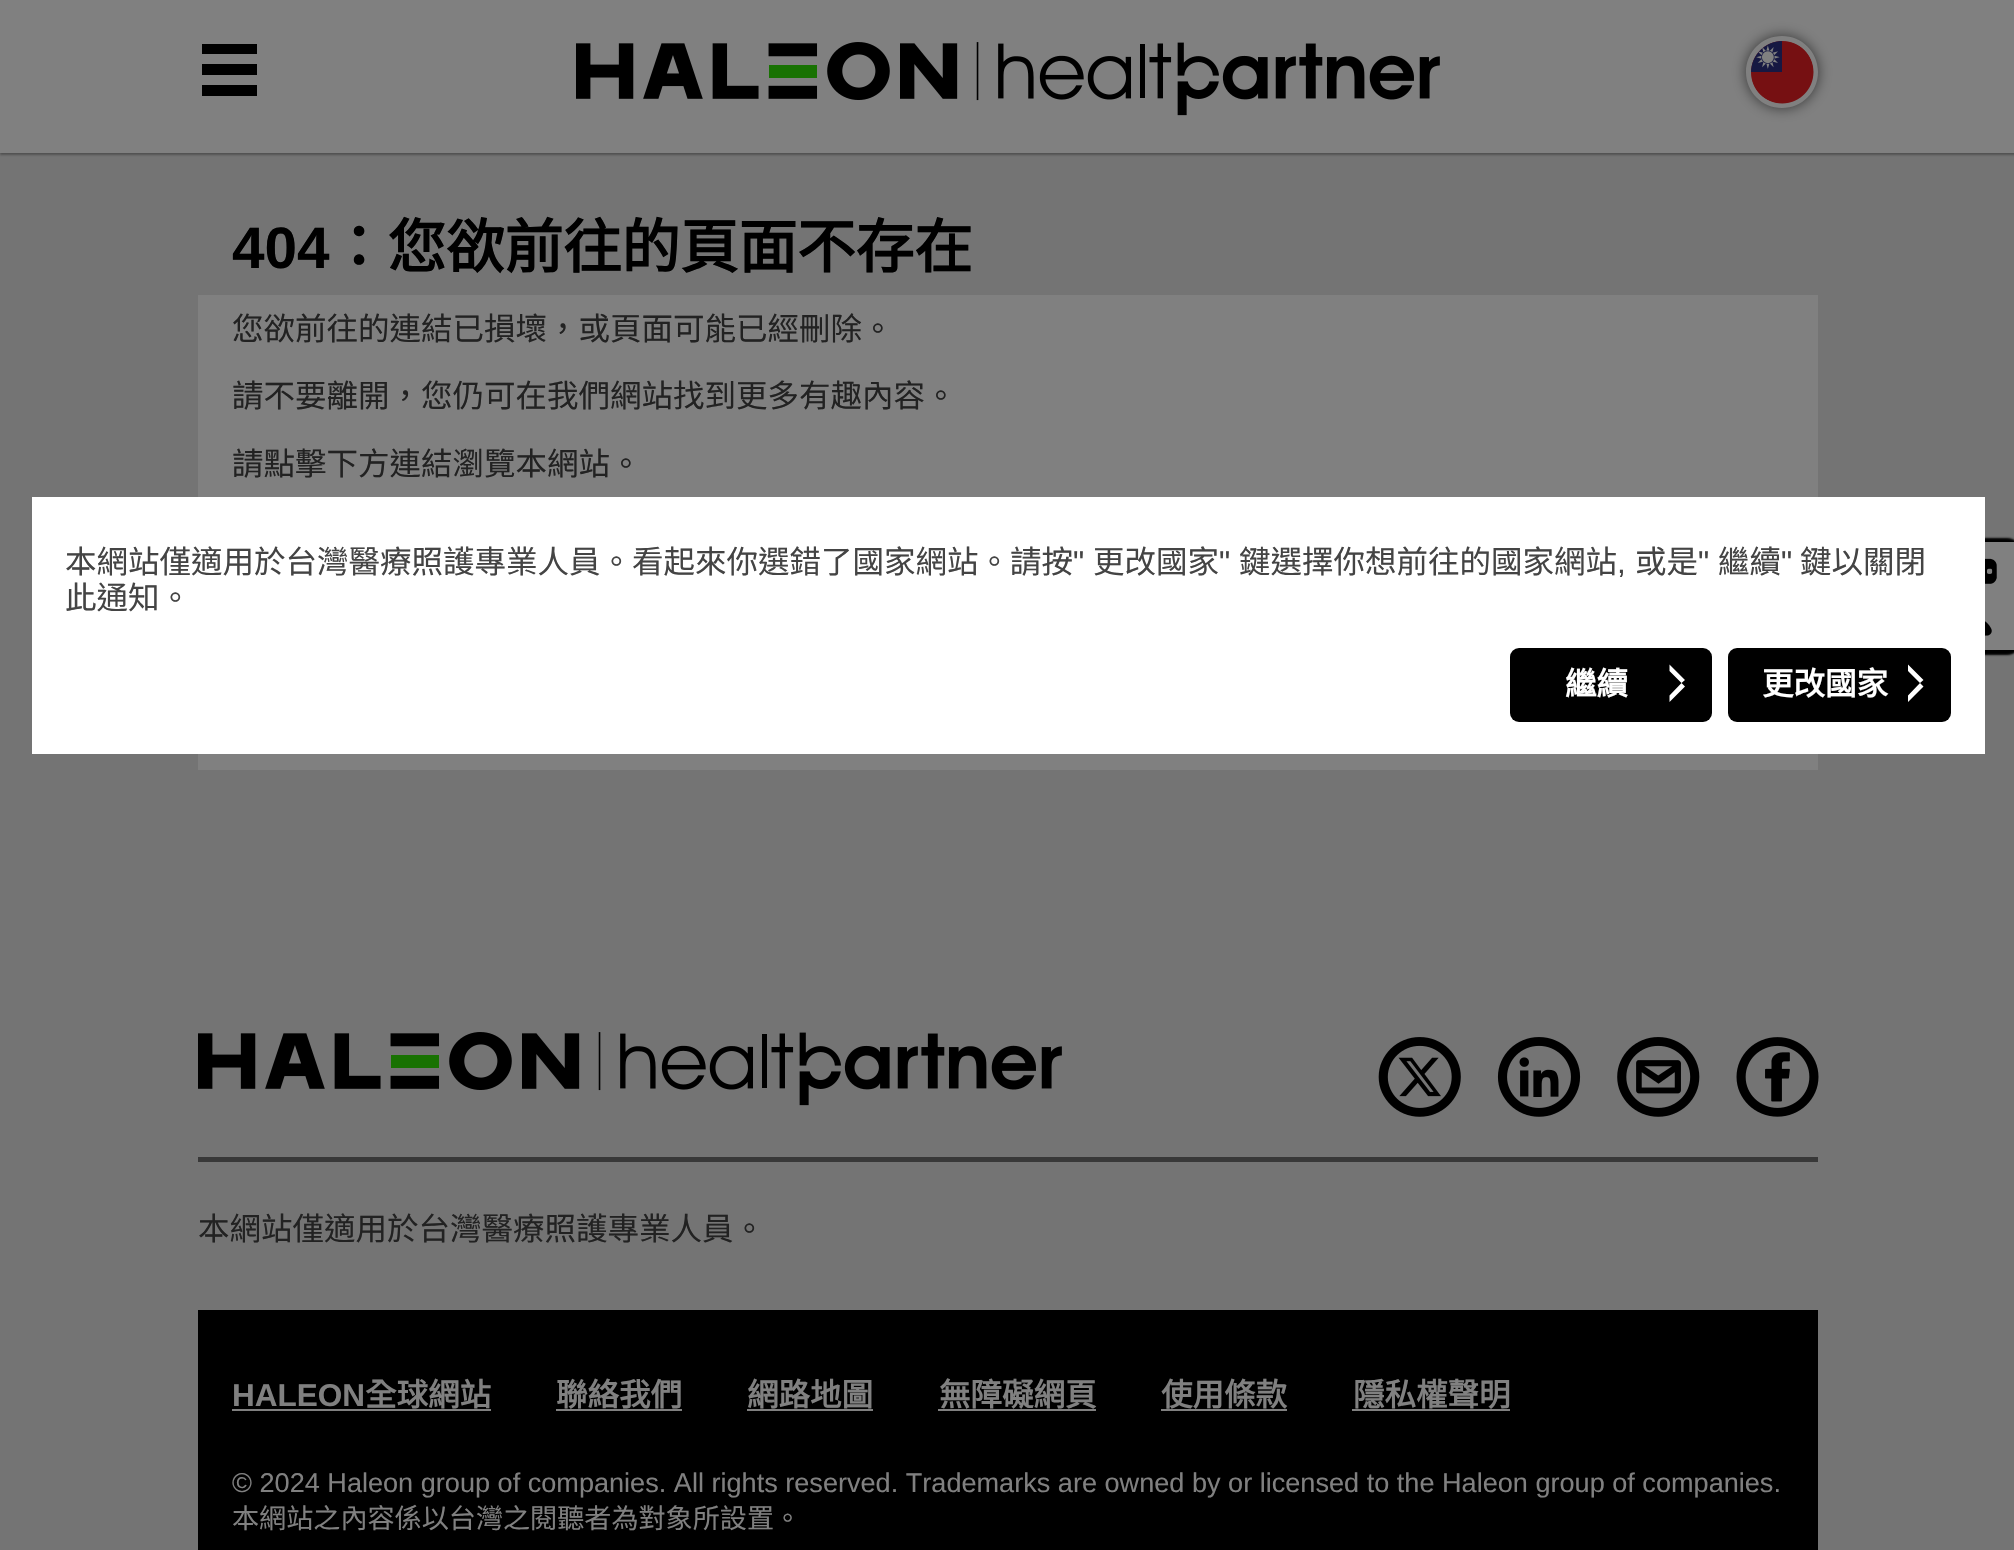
#include "include/core/SkBlurTypes.h"
#include "include/core/SkCanvas.h"
#include "include/core/SkData.h"
#include "include/core/SkFont.h"
#include "include/core/SkFontMgr.h"
#include "include/core/SkImage.h"
#include "include/core/SkMaskFilter.h"
#include "include/core/SkPaint.h"
#include "include/core/SkPathBuilder.h"
#include "include/core/SkTextBlob.h"
#include "include/effects/SkDashPathEffect.h"
#include "include/effects/SkGradientShader.h"
#include "include/utils/SkParsePath.h"

extern sk_sp<SkFontMgr> fontMgr;

void draw(SkCanvas* canvas) {
  SkPaint p;
  p.setAntiAlias(true);
  canvas->clear(SkColorSetRGB(116, 116, 116));
  p.setColor(SkColorSetARGB(77, 0, 0, 0));
  p.setMaskFilter(SkMaskFilter::MakeBlur(kNormal_SkBlurStyle, 1));
  canvas->drawRect(SkRect::MakeLTRB(0, -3, 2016, 155), p);
  p.setMaskFilter(nullptr);
  p.setColor(SkColorSetRGB(128, 128, 128));
  canvas->drawRect(SkRect::MakeLTRB(0, 0, 2014, 153), p);
  p.setColor(SK_ColorBLACK);
  canvas->drawPath(SkPathBuilder().moveTo(202, 64).lineTo(257, 64).lineTo(257, 75).lineTo(202, 75).close().moveTo(202, 44).lineTo(257, 44).lineTo(257, 54).lineTo(202, 54).close().moveTo(202, 85).lineTo(257, 85).lineTo(257, 96).lineTo(202, 96).close().detach(), p);
  canvas->drawImageRect(SkImages::DeferredFromEncodedData(SkData::MakeFromFileName("images/1.png")), SkRect::MakeLTRB(576, 42, 1440, 116), SkSamplingOptions());
  canvas->save();
  canvas->clipPath(SkPathBuilder(SkPathFillType::kEvenOdd).moveTo(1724, 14).lineTo(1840, 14).lineTo(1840, 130).lineTo(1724, 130).close().moveTo(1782, 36).cubicTo(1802, 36, 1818, 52, 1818, 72).cubicTo(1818, 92, 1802, 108, 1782, 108).cubicTo(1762, 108, 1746, 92, 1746, 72).cubicTo(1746, 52, 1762, 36, 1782, 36).close().detach(), true);
  p.setColor(SkColorSetRGB(51, 51, 51));
  p.setMaskFilter(SkMaskFilter::MakeBlur(kNormal_SkBlurStyle, 7));
  canvas->drawRoundRect(SkRect::MakeLTRB(1746, 36, 1818, 108), 36, 36, p);
  p.setMaskFilter(nullptr);
  canvas->restore();
  canvas->drawImageRect(SkImages::DeferredFromEncodedData(SkData::MakeFromFileName("images/2.png")), SkRect::MakeLTRB(1751, 41, 1814, 104), SkSamplingOptions());
  p.setColor(SkColorSetRGB(128, 128, 128));
  canvas->drawRect(SkRect::MakeLTRB(198, 295, 1818, 770), p);
  p.setColor(SkColorSetRGB(56, 56, 56));
  canvas->drawRect(SkRect::MakeLTRB(198, 1157, 1818, 1162), p);
  canvas->drawImageRect(SkImages::DeferredFromEncodedData(SkData::MakeFromFileName("images/3.png")), SkRect::MakeLTRB(198, 1032, 1062, 1106), SkSamplingOptions());
  canvas->drawImageRect(SkImages::DeferredFromEncodedData(SkData::MakeFromFileName("images/4.png")), SkRect::MakeLTRB(1378, 1037, 1461, 1117), SkSamplingOptions());
  canvas->drawImageRect(SkImages::DeferredFromEncodedData(SkData::MakeFromFileName("images/5.png")), SkRect::MakeLTRB(1497, 1037, 1581, 1117), SkSamplingOptions());
  canvas->drawImageRect(SkImages::DeferredFromEncodedData(SkData::MakeFromFileName("images/6.png")), SkRect::MakeLTRB(1617, 1037, 1700, 1117), SkSamplingOptions());
  canvas->drawImageRect(SkImages::DeferredFromEncodedData(SkData::MakeFromFileName("images/7.png")), SkRect::MakeLTRB(1736, 1037, 1819, 1117), SkSamplingOptions());
  p.setColor(SK_ColorBLACK);
  p.setMaskFilter(SkMaskFilter::MakeBlur(kNormal_SkBlurStyle, 1));
  canvas->drawRoundRect(SkRect::MakeLTRB(1906, 538, 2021, 655), 14, 14, p);
  p.setMaskFilter(nullptr);
  p.setColor(SkColorSetRGB(128, 128, 128));
  canvas->drawRect(SkRect::MakeLTRB(1985, 542, 2014, 650), p);
  canvas->drawImageRect(SkImages::DeferredFromEncodedData(SkData::MakeFromFileName("images/8.png")), SkRect::MakeLTRB(1985, 558, 1997, 636), SkSamplingOptions());
  p.setColor(SK_ColorBLACK);
  canvas->drawRect(SkRect::MakeLTRB(198, 1310, 1818, 1550), p);
  p.setColor(SkColorSetRGB(128, 128, 128));
  canvas->drawRect(SkRect::MakeLTRB(232, 1409, 491, 1411), p);
  canvas->drawRect(SkRect::MakeLTRB(556, 1409, 682, 1411), p);
  canvas->drawRect(SkRect::MakeLTRB(747, 1409, 873, 1411), p);
  canvas->drawRect(SkRect::MakeLTRB(938, 1409, 1096, 1411), p);
  canvas->drawRect(SkRect::MakeLTRB(1161, 1409, 1287, 1411), p);
  canvas->drawRect(SkRect::MakeLTRB(1352, 1409, 1510, 1411), p);
  p.setColor(SK_ColorWHITE);
  canvas->drawRect(SkRect::MakeLTRB(32, 497, 1985, 754), p);
  p.setColor(SK_ColorBLACK);
  canvas->drawRoundRect(SkRect::MakeLTRB(1510, 648, 1712, 722), 9, 9, p);
  p.setColor(SK_ColorWHITE);
  canvas->drawPath(SkPathBuilder().moveTo(1669.5f, 702).lineTo(1669.5f, 695.5f).lineTo(1681.5f, 683).lineTo(1685, 686.5f).close().moveTo(1669.5f, 664.5f).lineTo(1669.5f, 671).lineTo(1681.5f, 683).lineTo(1685, 680).close().detach(), p);
  p.setColor(SK_ColorBLACK);
  canvas->drawRoundRect(SkRect::MakeLTRB(1728, 648, 1951, 722), 9, 9, p);
  p.setColor(SK_ColorWHITE);
  canvas->drawPath(SkPathBuilder().moveTo(1908, 702).lineTo(1908, 695.5f).lineTo(1920, 683).lineTo(1923.5f, 686.5f).close().moveTo(1908, 664.5f).lineTo(1908, 671).lineTo(1920, 683).lineTo(1923.5f, 680).close().detach(), p);
  SkFont font1(fontMgr->matchFamilyStyle("Liberation Sans", SkFontStyle::Bold()), 58.5f);
  font1.setSubpixel(true);
  p.setColor(SK_ColorBLACK);
  canvas->drawString("404", 232, 268, font1, p);
  SkFont font2(fontMgr->matchFamilyStyle("Noto Sans CJK TC", SkFontStyle::Bold()), 58.5f);
  font2.setSubpixel(true);
  canvas->drawString("：您欲前往的頁面不存在", 329, 268, font2, p);
  SkFont font3(fontMgr->matchFamilyStyle("Noto Sans CJK TC", SkFontStyle::Normal()), 31.5f);
  font3.setSubpixel(true);
  p.setColor(SkColorSetRGB(34, 34, 34));
  canvas->drawString("您欲前往的連結已損壞，或頁面可能已經刪除。", 232, 340, font3, p);
  canvas->drawString("請不要離開，您仍可在我們網站找到更多有趣內容。", 232, 407, font3, p);
  canvas->drawString("請點擊下方連結瀏覽本網站。", 232, 475, font3, p);
  canvas->drawString("本網站僅適用於台灣醫療照護專業人員。", 198, 1240, font3, p);
  SkFont font4(fontMgr->matchFamilyStyle("Liberation Sans", SkFontStyle::Bold()), 31.5f);
  font4.setSubpixel(true);
  p.setColor(SkColorSetRGB(128, 128, 128));
  canvas->drawString("HALEON", 232, 1406, font4, p);
  SkFont font5(fontMgr->matchFamilyStyle("Noto Sans CJK TC", SkFontStyle::Bold()), 31.5f);
  font5.setSubpixel(true);
  canvas->drawString("全球網站", 365, 1406, font5, p);
  canvas->drawString("聯絡我們", 556, 1406, font5, p);
  canvas->drawString("網路地圖", 747, 1406, font5, p);
  canvas->drawString("無障礙網頁", 939, 1406, font5, p);
  canvas->drawString("使用條款", 1161, 1406, font5, p);
  canvas->drawString("隱私權聲明", 1353, 1406, font5, p);
  SkFont font6(fontMgr->matchFamilyStyle("Liberation Sans", SkFontStyle::Normal()), 27.1f);
  font6.setSubpixel(true);
  canvas->drawString("© 2024 Haleon group of companies. All rights reserved. Trademarks are owned by or licensed to the Haleon group of companies.", 232, 1492, font6, p);
  SkFont font7(fontMgr->matchFamilyStyle("Noto Sans CJK TC", SkFontStyle::Normal()), 27.1f);
  font7.setSubpixel(true);
  canvas->drawString("本網站之內容係以台灣之閱聽者為對象所設置。", 232, 1528, font7, p);
  p.setColor(SkColorSetRGB(68, 68, 68));
  canvas->drawString("本網站僅適用於台灣醫療照護專業人員。看起來你選錯了國家網站。請按", 65, 573, font3, p);
  SkFont font8(fontMgr->matchFamilyStyle("Liberation Sans", SkFontStyle::Normal()), 31.5f);
  font8.setSubpixel(true);
  canvas->drawString("\"", 1073, 573, font8, p);
  canvas->drawString("更改國家", 1093, 573, font3, p);
  canvas->drawString("\"", 1219, 573, font8, p);
  canvas->drawString("鍵選擇你想前往的國家網站", 1239, 573, font3, p);
  canvas->drawString("或是", 1635, 573, font3, p);
  canvas->drawString("\"", 1698, 573, font8, p);
  canvas->drawString("繼續", 1718, 573, font3, p);
  canvas->drawString("\"", 1781, 573, font8, p);
  canvas->drawString("鍵以關閉", 1800, 573, font3, p);
  canvas->drawString(",", 1617, 573, font8, p);
  canvas->drawString("此通知。", 65, 609, font3, p);
  p.setColor(SK_ColorWHITE);
  canvas->drawString("繼續", 1565, 695, font5, p);
  canvas->drawString("更改國家", 1762, 695, font5, p);
}
